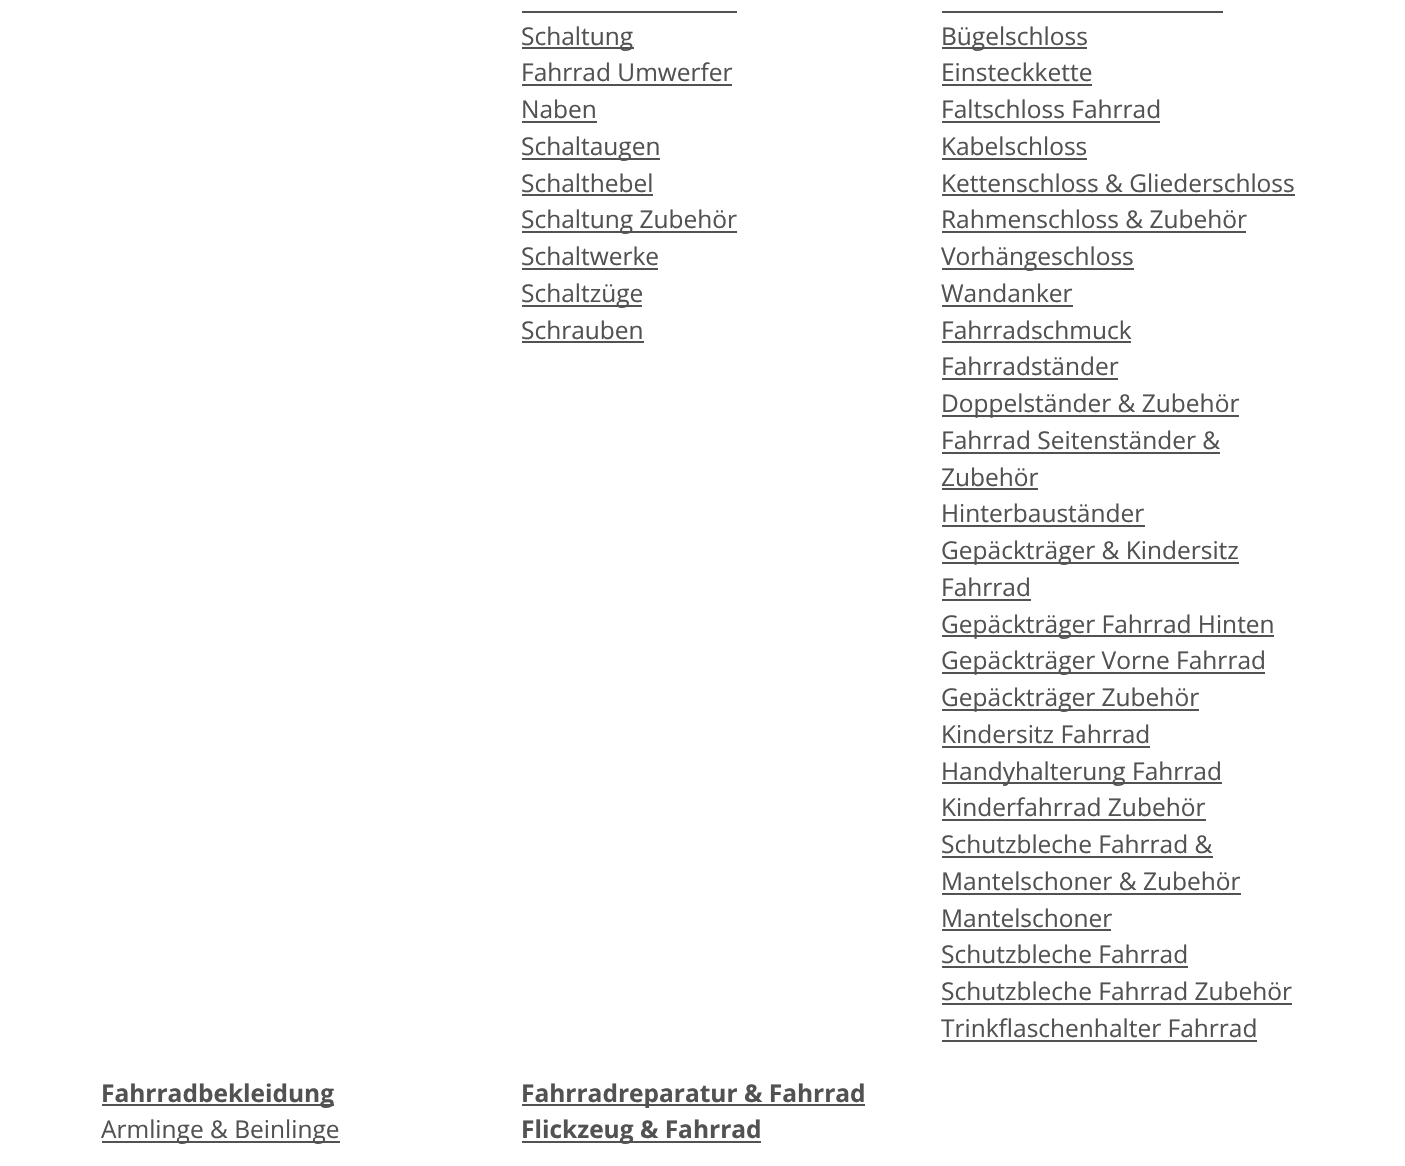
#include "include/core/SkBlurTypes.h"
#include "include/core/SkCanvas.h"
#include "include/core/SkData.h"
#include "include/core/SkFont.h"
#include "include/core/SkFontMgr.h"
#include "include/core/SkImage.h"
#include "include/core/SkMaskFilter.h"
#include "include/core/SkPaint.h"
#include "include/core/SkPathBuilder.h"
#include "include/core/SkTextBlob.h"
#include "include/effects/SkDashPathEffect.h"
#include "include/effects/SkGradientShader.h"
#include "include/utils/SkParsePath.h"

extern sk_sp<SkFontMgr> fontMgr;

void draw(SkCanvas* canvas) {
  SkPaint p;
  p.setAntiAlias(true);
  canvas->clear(SK_ColorWHITE);
  p.setColor(SkColorSetRGB(82, 82, 82));
  canvas->drawRect(SkRect::MakeLTRB(522, 11, 737, 13), p);
  canvas->drawRect(SkRect::MakeLTRB(522, 47, 634, 49), p);
  canvas->drawRect(SkRect::MakeLTRB(522, 84, 732, 86), p);
  canvas->drawRect(SkRect::MakeLTRB(522, 121, 597, 123), p);
  canvas->drawRect(SkRect::MakeLTRB(522, 158, 660, 160), p);
  canvas->drawRect(SkRect::MakeLTRB(522, 194, 653, 196), p);
  canvas->drawRect(SkRect::MakeLTRB(522, 231, 737, 233), p);
  canvas->drawRect(SkRect::MakeLTRB(522, 268, 658, 270), p);
  canvas->drawRect(SkRect::MakeLTRB(522, 305, 642, 307), p);
  canvas->drawRect(SkRect::MakeLTRB(522, 341, 644, 343), p);
  canvas->drawRect(SkRect::MakeLTRB(942, 11, 1223, 13), p);
  canvas->drawRect(SkRect::MakeLTRB(942, 47, 1087, 49), p);
  canvas->drawRect(SkRect::MakeLTRB(942, 84, 1092, 86), p);
  canvas->drawRect(SkRect::MakeLTRB(942, 121, 1160, 123), p);
  canvas->drawRect(SkRect::MakeLTRB(942, 158, 1087, 160), p);
  canvas->drawRect(SkRect::MakeLTRB(942, 194, 1295, 196), p);
  canvas->drawRect(SkRect::MakeLTRB(942, 231, 1246, 233), p);
  canvas->drawRect(SkRect::MakeLTRB(942, 268, 1134, 270), p);
  canvas->drawRect(SkRect::MakeLTRB(942, 305, 1073, 307), p);
  canvas->drawRect(SkRect::MakeLTRB(942, 341, 1131, 343), p);
  canvas->drawRect(SkRect::MakeLTRB(942, 378, 1118, 380), p);
  canvas->drawRect(SkRect::MakeLTRB(942, 415, 1239, 417), p);
  canvas->drawRect(SkRect::MakeLTRB(942, 452, 1220, 454), p);
  canvas->drawRect(SkRect::MakeLTRB(942, 488, 1038, 490), p);
  canvas->drawRect(SkRect::MakeLTRB(942, 525, 1145, 527), p);
  canvas->drawRect(SkRect::MakeLTRB(942, 562, 1239, 564), p);
  canvas->drawRect(SkRect::MakeLTRB(942, 599, 1031, 601), p);
  canvas->drawRect(SkRect::MakeLTRB(942, 635, 1274, 637), p);
  canvas->drawRect(SkRect::MakeLTRB(942, 672, 1265, 674), p);
  canvas->drawRect(SkRect::MakeLTRB(942, 709, 1199, 711), p);
  canvas->drawRect(SkRect::MakeLTRB(942, 746, 1150, 748), p);
  canvas->drawRect(SkRect::MakeLTRB(942, 782, 1222, 784), p);
  canvas->drawRect(SkRect::MakeLTRB(942, 819, 1206, 821), p);
  canvas->drawRect(SkRect::MakeLTRB(942, 856, 1213, 858), p);
  canvas->drawRect(SkRect::MakeLTRB(942, 893, 1241, 895), p);
  canvas->drawRect(SkRect::MakeLTRB(942, 929, 1111, 931), p);
  canvas->drawRect(SkRect::MakeLTRB(942, 966, 1188, 968), p);
  canvas->drawRect(SkRect::MakeLTRB(942, 1003, 1292, 1005), p);
  canvas->drawRect(SkRect::MakeLTRB(942, 1040, 1257, 1042), p);
  canvas->drawRect(SkRect::MakeLTRB(102, 1104, 334, 1106), p);
  canvas->drawRect(SkRect::MakeLTRB(102, 1141, 340, 1143), p);
  canvas->drawRect(SkRect::MakeLTRB(522, 1104, 865, 1106), p);
  canvas->drawRect(SkRect::MakeLTRB(522, 1141, 761, 1143), p);
  SkFont font1(fontMgr->matchFamilyStyle("Open Sans", SkFontStyle::Normal()), 24.5f);
  font1.setSubpixel(true);
  canvas->drawString("Schaltung", 521, 45, font1, p);
  canvas->drawString("Fahrrad Umwerfer", 521, 81, font1, p);
  canvas->drawString("Naben", 521, 118, font1, p);
  canvas->drawString("Schaltaugen", 521, 155, font1, p);
  canvas->drawString("Schalthebel", 521, 192, font1, p);
  canvas->drawString("Schaltung Zubehör", 521, 228, font1, p);
  canvas->drawString("Schaltwerke", 521, 265, font1, p);
  canvas->drawString("Schaltzüge", 521, 302, font1, p);
  canvas->drawString("Schrauben", 521, 339, font1, p);
  canvas->drawString("Bügelschloss", 941, 45, font1, p);
  canvas->drawString("Einsteckkette", 941, 81, font1, p);
  canvas->drawString("Faltschloss Fahrrad", 941, 118, font1, p);
  canvas->drawString("Kabelschloss", 941, 155, font1, p);
  canvas->drawString("Kettenschloss & Gliederschloss", 941, 192, font1, p);
  canvas->drawString("Rahmenschloss & Zubehör", 941, 228, font1, p);
  canvas->drawString("Vorhängeschloss", 941, 265, font1, p);
  canvas->drawString("Wandanker", 941, 302, font1, p);
  canvas->drawString("Fahrradschmuck", 941, 339, font1, p);
  canvas->drawString("Fahrradständer", 941, 375, font1, p);
  canvas->drawString("Doppelständer & Zubehör", 941, 412, font1, p);
  canvas->drawString("Fahrrad Seitenständer &", 941, 449, font1, p);
  canvas->drawString("Zubehör", 941, 486, font1, p);
  canvas->drawString("Hinterbauständer", 941, 522, font1, p);
  canvas->drawString("Gepäckträger & Kindersitz", 941, 559, font1, p);
  canvas->drawString("Fahrrad", 941, 596, font1, p);
  canvas->drawString("Gepäckträger Fahrrad Hinten", 941, 633, font1, p);
  canvas->drawString("Gepäckträger Vorne Fahrrad", 941, 669, font1, p);
  canvas->drawString("Gepäckträger Zubehör", 941, 706, font1, p);
  canvas->drawString("Kindersitz Fahrrad", 941, 743, font1, p);
  canvas->drawString("Handyhalterung Fahrrad", 941, 780, font1, p);
  canvas->drawString("Kinderfahrrad Zubehör", 941, 816, font1, p);
  canvas->drawString("Schutzbleche Fahrrad &", 941, 853, font1, p);
  canvas->drawString("Mantelschoner & Zubehör", 941, 890, font1, p);
  canvas->drawString("Mantelschoner", 941, 927, font1, p);
  canvas->drawString("Schutzbleche Fahrrad", 941, 963, font1, p);
  canvas->drawString("Schutzbleche Fahrrad Zubehör", 941, 1000, font1, p);
  canvas->drawString("Trinkflaschenhalter Fahrrad", 941, 1037, font1, p);
  SkFont font2(fontMgr->matchFamilyStyle("Open Sans", SkFontStyle::Bold()), 24.5f);
  font2.setSubpixel(true);
  canvas->drawString("Fahrradbekleidung", 101, 1102, font2, p);
  canvas->drawString("Armlinge & Beinlinge", 101, 1138, font1, p);
  canvas->drawString("Fahrradreparatur & Fahrrad", 521, 1102, font2, p);
  canvas->drawString("Flickzeug & Fahrrad", 521, 1138, font2, p);
}
